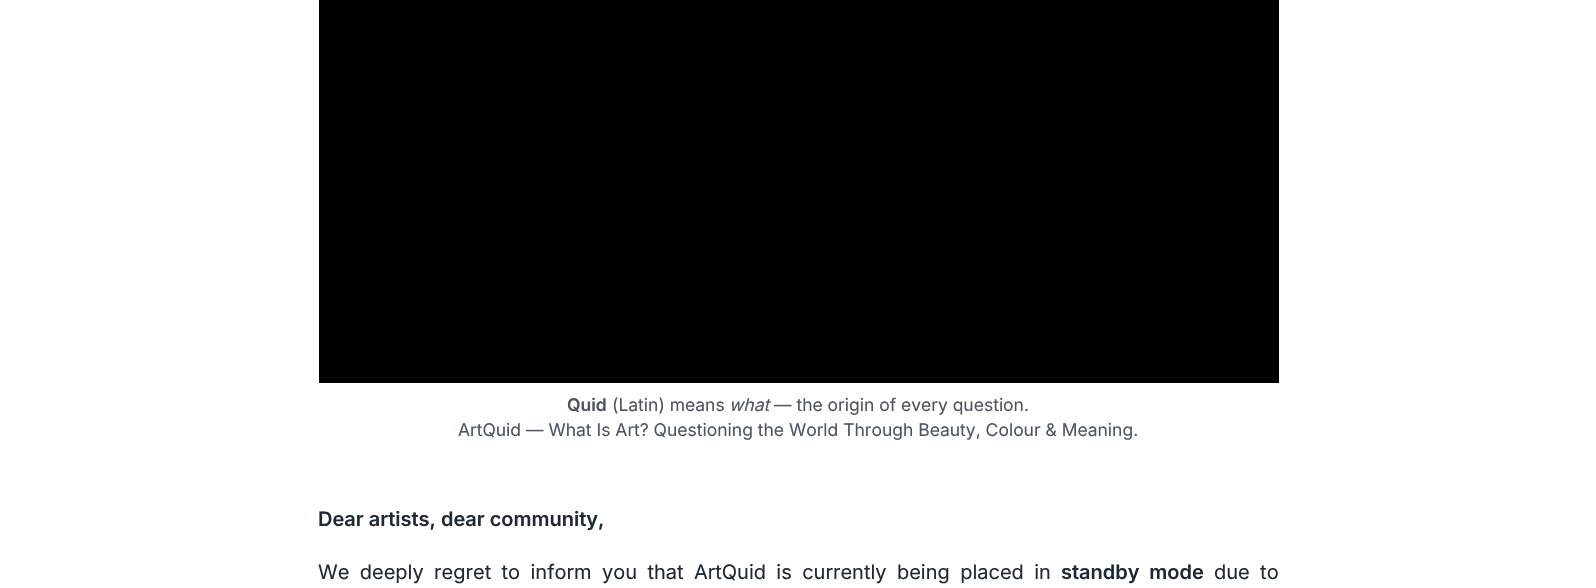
#include "include/core/SkBlurTypes.h"
#include "include/core/SkCanvas.h"
#include "include/core/SkData.h"
#include "include/core/SkFont.h"
#include "include/core/SkFontMgr.h"
#include "include/core/SkImage.h"
#include "include/core/SkMaskFilter.h"
#include "include/core/SkPaint.h"
#include "include/core/SkPathBuilder.h"
#include "include/core/SkTextBlob.h"
#include "include/effects/SkDashPathEffect.h"
#include "include/effects/SkGradientShader.h"
#include "include/utils/SkParsePath.h"

extern sk_sp<SkFontMgr> fontMgr;

void draw(SkCanvas* canvas) {
  SkPaint p;
  p.setAntiAlias(true);
  auto spacedText = [&](const char* s, float x, float y, const SkFont& font, const SkPaint& ink, float letter, float word) {
    std::vector<SkGlyphID> glyphs(font.countText(s, strlen(s), SkTextEncoding::kUTF8));
    std::vector<float> xs(glyphs.size());
    font.textToGlyphs(s, strlen(s), SkTextEncoding::kUTF8, glyphs);
    font.getXPos(glyphs, xs, x);
    float extra = 0;
    for (size_t i = 0; i < glyphs.size(); i++) {
      xs[i] += extra;
      extra += letter + word * (glyphs[i] == font.unicharToGlyph(' '));
    }
    canvas->drawTextBlob(SkTextBlob::MakeFromPosHGlyphs(glyphs, xs, y, font), 0, 0, ink);
  };
  canvas->clear(SK_ColorWHITE);
  p.setColor(SK_ColorBLACK);
  canvas->drawRect(SkRect::MakeLTRB(319, 0, 1279, 383), p);
  SkFont font1(fontMgr->matchFamilyStyle("Inter", SkFontStyle(600, SkFontStyle::kNormal_Width, SkFontStyle::kUpright_Slant)), 17.5f);
  font1.setSubpixel(true);
  p.setColor(SkColorSetRGB(75, 85, 99));
  canvas->drawString("Quid", 567, 411, font1, p);
  SkFont font2(fontMgr->matchFamilyStyle("Inter", SkFontStyle::Normal()), 17.5f);
  font2.setSubpixel(true);
  canvas->drawString("(Latin) means", 612, 411, font2, p);
  SkFont font3(fontMgr->matchFamilyStyle("Inter", SkFontStyle::Italic()), 17.5f);
  font3.setSubpixel(true);
  canvas->drawString("what", 729, 411, font3, p);
  canvas->drawString("— the origin of every question.", 774, 411, font2, p);
  canvas->drawString("ArtQuid — What Is Art? Questioning the World Through Beauty, Colour & Meaning.", 458, 436, font2, p);
  SkFont font4(fontMgr->matchFamilyStyle("Inter", SkFontStyle(600, SkFontStyle::kNormal_Width, SkFontStyle::kUpright_Slant)), 20);
  font4.setSubpixel(true);
  p.setColor(SkColorSetRGB(31, 41, 55));
  canvas->drawString("Dear artists, dear community,", 318, 526, font4, p);
  SkFont font5(fontMgr->matchFamilyStyle("Inter", SkFontStyle::Normal()), 20);
  font5.setSubpixel(true);
  spacedText("We deeply regret to inform you that ArtQuid is currently being placed in", 318, 579, font5, p, 0, 4.75f);
  spacedText("standby mode", 1061, 579, font4, p, 0, 4.75f);
  spacedText("due to", 1214, 579, font5, p, 0, 4.75f);
}
